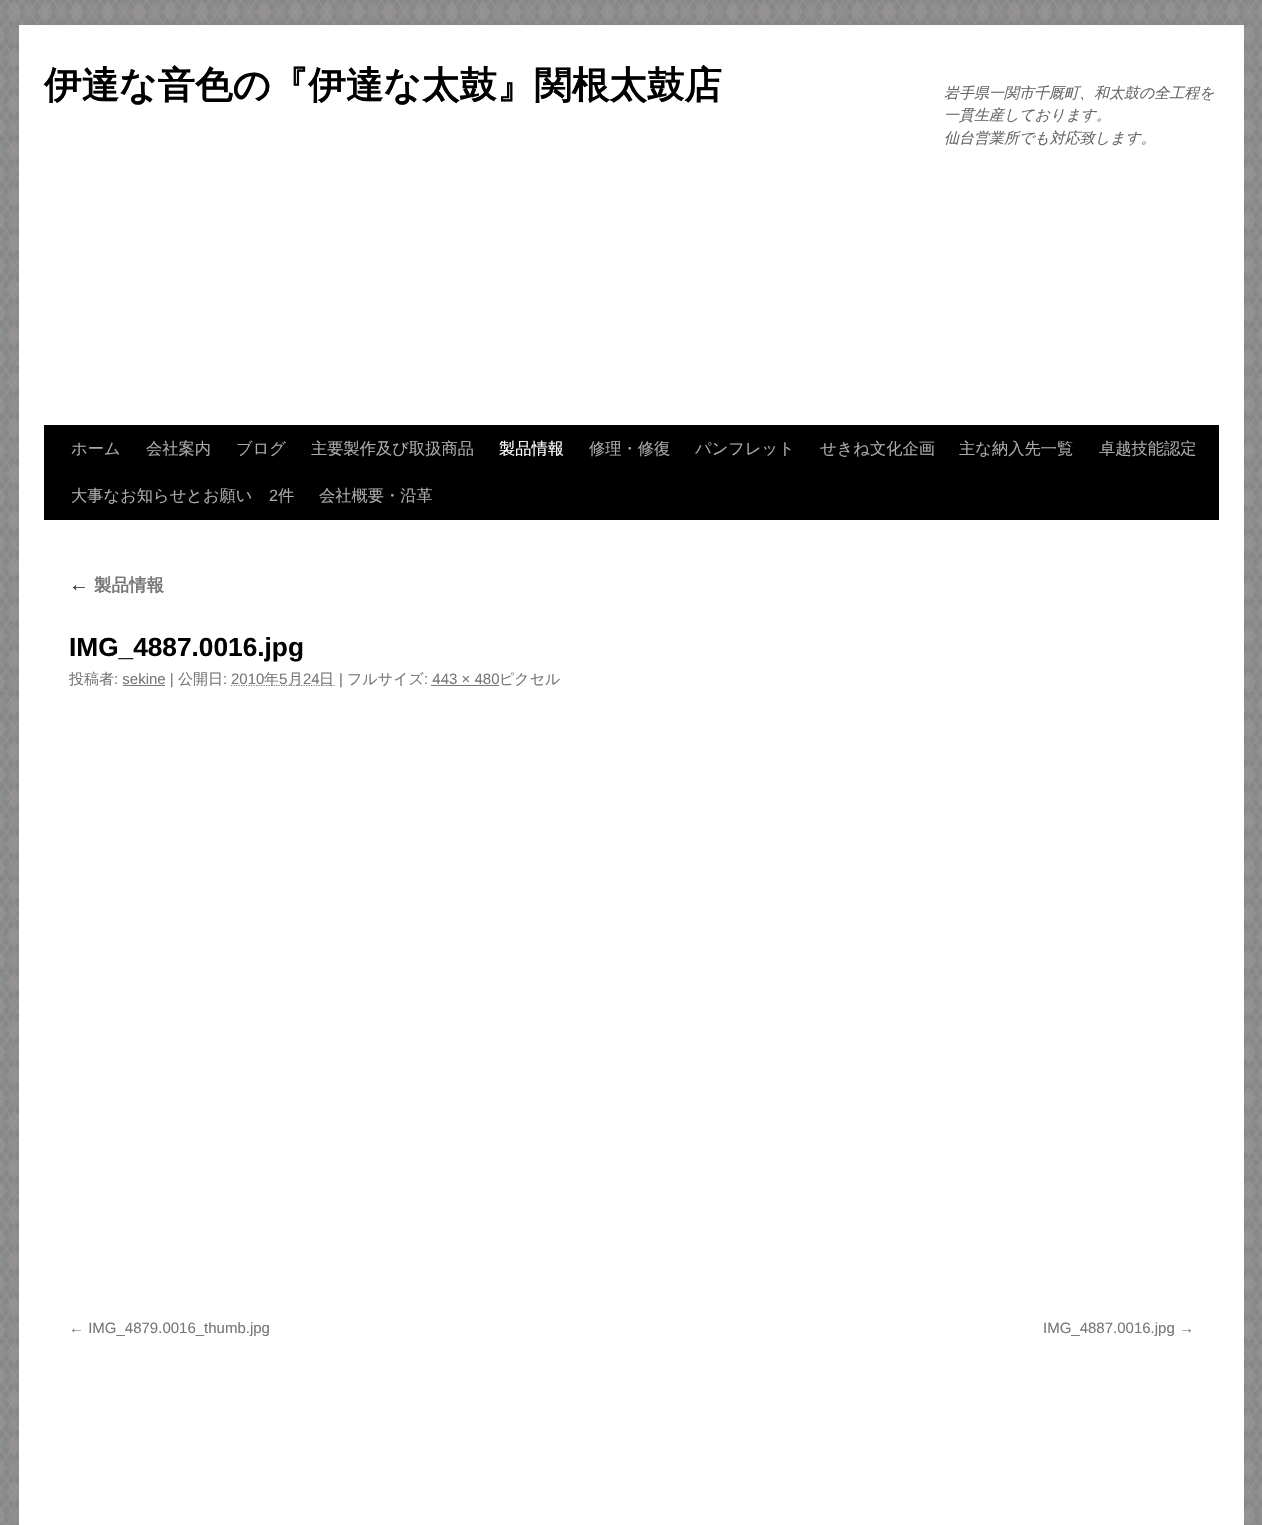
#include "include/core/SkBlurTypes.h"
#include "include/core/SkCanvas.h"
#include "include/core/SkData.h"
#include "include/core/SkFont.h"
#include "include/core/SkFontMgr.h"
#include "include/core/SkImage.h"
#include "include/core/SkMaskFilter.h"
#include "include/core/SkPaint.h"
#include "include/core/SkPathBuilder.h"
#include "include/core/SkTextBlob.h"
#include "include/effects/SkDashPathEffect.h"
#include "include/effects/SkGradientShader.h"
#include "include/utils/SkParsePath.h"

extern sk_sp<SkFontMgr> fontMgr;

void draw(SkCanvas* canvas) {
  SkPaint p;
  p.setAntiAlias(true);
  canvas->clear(SK_ColorWHITE);
  canvas->drawImageRect(SkImages::DeferredFromEncodedData(SkData::MakeFromFileName("images/1.png")), SkRect::MakeLTRB(0, 0, 1262, 1525), SkSamplingOptions());
  p.setColor(SK_ColorWHITE);
  canvas->drawRect(SkRect::MakeLTRB(19, 25, 1244, 1525), p);
  p.setColor(SK_ColorBLACK);
  canvas->drawRect(SkRect::MakeLTRB(44, 425, 1219, 520), p);
  p.setStyle(SkPaint::kStroke_Style);
  p.setStrokeWidth(1.2f);
  p.setColor(SkColorSetRGB(119, 119, 119));
  p.setPathEffect(SkDashPathEffect::Make({{1.25f, 1.25f}}, 0));
  canvas->drawPath(SkPathBuilder().moveTo(231, 685.5f).lineTo(334.5f, 685.5f).detach(), p);
  p.setPathEffect(nullptr);
  p.setStyle(SkPaint::kFill_Style);
  canvas->drawRect(SkRect::MakeLTRB(123, 685, 165, 686), p);
  canvas->drawRect(SkRect::MakeLTRB(431, 685, 499, 686), p);
  SkFont font1(fontMgr->matchFamilyStyle("WenQuanYi Zen Hei", SkFontStyle::Bold()), 37.5f);
  font1.setSubpixel(true);
  p.setColor(SK_ColorBLACK);
  canvas->drawString("伊達な音色の『伊達な太鼓』関根太鼓店", 44, 98, font1, p);
  SkFont font2(fontMgr->matchFamilyStyle("WenQuanYi Zen Hei", SkFontStyle(500, SkFontStyle::kNormal_Width, SkFontStyle::kItalic_Slant)), 15);
  font2.setSubpixel(true);
  p.setColor(SkColorSetRGB(102, 102, 102));
  canvas->drawString("岩手県一関市千厩町、和太鼓の全工程を", 944, 98, font2, p);
  canvas->drawString("一貫生産しております。", 944, 120, font2, p);
  canvas->drawString("仙台営業所でも対応致します。", 944, 143, font2, p);
  SkFont font3(fontMgr->matchFamilyStyle("WenQuanYi Zen Hei", SkFontStyle(500, SkFontStyle::kNormal_Width, SkFontStyle::kUpright_Slant)), 16.25f);
  font3.setSubpixel(true);
  p.setColor(SkColorSetRGB(170, 170, 170));
  canvas->drawString("ホーム", 71, 454, font3, p);
  canvas->drawString("会社案内", 146, 454, font3, p);
  canvas->drawString("ブログ", 236, 454, font3, p);
  canvas->drawString("主要製作及び取扱商品", 311, 454, font3, p);
  p.setColor(SK_ColorWHITE);
  canvas->drawString("製品情報", 499, 454, font3, p);
  p.setColor(SkColorSetRGB(170, 170, 170));
  canvas->drawString("修理・修復", 589, 454, font3, p);
  canvas->drawString("パンフレット", 695, 454, font3, p);
  canvas->drawString("せきね文化企画", 820, 454, font3, p);
  canvas->drawString("主な納入先一覧", 959, 454, font3, p);
  canvas->drawString("卓越技能認定", 1099, 454, font3, p);
  canvas->drawString("大事なお知らせとお願い", 71, 501, font3, p);
  SkFont font4(fontMgr->matchFamilyStyle("Liberation Sans", SkFontStyle::Normal()), 16.25f);
  font4.setSubpixel(true);
  canvas->drawString("2", 269, 501, font4, p);
  canvas->drawString("件", 278, 501, font3, p);
  canvas->drawString("会社概要・沿革", 319, 501, font3, p);
  SkFont font5(fontMgr->matchFamilyStyle("Liberation Serif", SkFontStyle::Italic()), 20);
  font5.setSubpixel(true);
  p.setColor(SkColorSetRGB(51, 51, 51));
  canvas->drawString("←", 69, 591, font5, p);
  SkFont font6(fontMgr->matchFamilyStyle("WenQuanYi Zen Hei", SkFontStyle::Bold()), 17.5f);
  font6.setSubpixel(true);
  p.setColor(SkColorSetRGB(119, 119, 119));
  canvas->drawString("製品情報", 94, 591, font6, p);
  SkFont font7(fontMgr->matchFamilyStyle("Liberation Sans", SkFontStyle::Bold()), 26.25f);
  font7.setSubpixel(true);
  p.setColor(SK_ColorBLACK);
  canvas->drawString("IMG_4887.0016.jpg", 69, 656, font7, p);
  SkFont font8(fontMgr->matchFamilyStyle("WenQuanYi Zen Hei", SkFontStyle(500, SkFontStyle::kNormal_Width, SkFontStyle::kUpright_Slant)), 15);
  font8.setSubpixel(true);
  p.setColor(SkColorSetRGB(119, 119, 119));
  canvas->drawString("投稿者", 69, 684, font8, p);
  SkFont font9(fontMgr->matchFamilyStyle("Liberation Sans", SkFontStyle::Normal()), 15);
  font9.setSubpixel(true);
  canvas->drawString(": sekine |", 114, 684, font9, p);
  canvas->drawString("公開日", 178, 684, font8, p);
  canvas->drawString(":", 223, 684, font9, p);
  canvas->drawString("2010", 231, 684, font9, p);
  canvas->drawString("年", 264, 684, font8, p);
  canvas->drawString("5", 279, 684, font9, p);
  canvas->drawString("月", 288, 684, font8, p);
  canvas->drawString("24", 303, 684, font9, p);
  canvas->drawString("日", 319, 684, font8, p);
  canvas->drawString("|", 339, 684, font9, p);
  canvas->drawString("フルサイズ", 347, 684, font8, p);
  canvas->drawString(": 443 × 480", 424, 684, font9, p);
  canvas->drawString("ピクセル", 499, 684, font8, p);
  canvas->drawString("← IMG_4879.0016_thumb.jpg", 69, 1333, font9, p);
  canvas->drawString("IMG_4887.0016.jpg →", 1043, 1333, font9, p);
}
